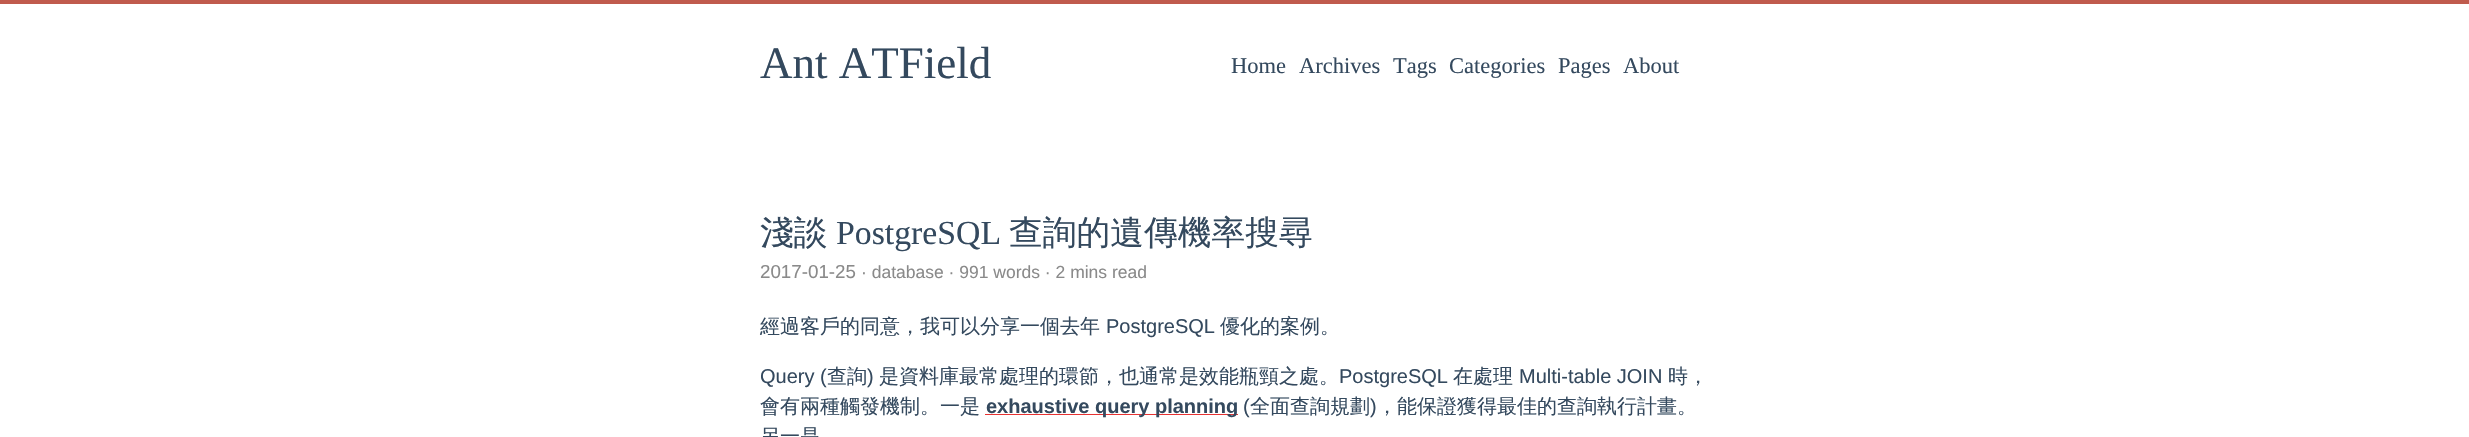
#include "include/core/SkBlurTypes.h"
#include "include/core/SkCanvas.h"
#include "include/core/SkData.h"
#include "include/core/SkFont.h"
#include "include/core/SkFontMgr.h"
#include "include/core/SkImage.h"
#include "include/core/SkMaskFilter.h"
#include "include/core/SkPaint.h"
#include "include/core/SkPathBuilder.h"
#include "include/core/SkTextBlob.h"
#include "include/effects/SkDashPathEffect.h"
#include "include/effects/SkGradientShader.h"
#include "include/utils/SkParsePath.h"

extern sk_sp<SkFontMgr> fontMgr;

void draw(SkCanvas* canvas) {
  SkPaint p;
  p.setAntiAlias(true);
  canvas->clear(SK_ColorWHITE);
  p.setColor(SkColorSetRGB(192, 91, 77));
  canvas->drawRect(SkRect::MakeLTRB(0, 0, 2469, 4), p);
  p.setColor(SkColorSetRGB(230, 50, 50));
  canvas->drawRect(SkRect::MakeLTRB(985, 414, 1238, 415), p);
  SkFont font1(fontMgr->matchFamilyStyle("Liberation Serif", SkFontStyle::Normal()), 45);
  font1.setSubpixel(true);
  p.setColor(SkColorSetRGB(52, 73, 94));
  canvas->drawString("Ant ATField", 760, 78, font1, p);
  SkFont font2(fontMgr->matchFamilyStyle("Liberation Serif", SkFontStyle::Normal()), 22.5f);
  font2.setSubpixel(true);
  canvas->drawString("Home", 1231, 73, font2, p);
  canvas->drawString("Archives", 1299, 73, font2, p);
  canvas->drawString("Tags", 1393, 73, font2, p);
  canvas->drawString("Categories", 1449, 73, font2, p);
  canvas->drawString("Pages", 1558, 73, font2, p);
  canvas->drawString("About", 1623, 73, font2, p);
  SkFont font3(fontMgr->matchFamilyStyle("WenQuanYi Zen Hei", SkFontStyle(500, SkFontStyle::kNormal_Width, SkFontStyle::kUpright_Slant)), 33.75f);
  font3.setSubpixel(true);
  canvas->drawString("淺談", 760, 244, font3, p);
  SkFont font4(fontMgr->matchFamilyStyle("Liberation Serif", SkFontStyle::Normal()), 33.75f);
  font4.setSubpixel(true);
  canvas->drawString("PostgreSQL", 836, 244, font4, p);
  canvas->drawString("查詢的遺傳機率搜尋", 1009, 244, font3, p);
  SkFont font5(fontMgr->matchFamilyStyle("Liberation Sans", SkFontStyle::Normal()), 18.75f);
  font5.setSubpixel(true);
  p.setColor(SkColorSetRGB(138, 138, 138));
  canvas->drawString("2017-01-25", 760, 278, font5, p);
  SkFont font6(fontMgr->matchFamilyStyle("Liberation Sans", SkFontStyle::Normal()), 17.5f);
  font6.setSubpixel(true);
  canvas->drawString("· database · 991 words · 2 mins read", 861, 278, font6, p);
  SkFont font7(fontMgr->matchFamilyStyle("WenQuanYi Zen Hei", SkFontStyle(500, SkFontStyle::kNormal_Width, SkFontStyle::kUpright_Slant)), 20);
  font7.setSubpixel(true);
  p.setColor(SkColorSetRGB(52, 73, 94));
  canvas->drawString("經過客戶的同意，我可以分享一個去年", 760, 333, font7, p);
  SkFont font8(fontMgr->matchFamilyStyle("Liberation Sans", SkFontStyle::Normal()), 20);
  font8.setSubpixel(true);
  canvas->drawString("PostgreSQL", 1106, 333, font8, p);
  canvas->drawString("優化的案例。", 1220, 333, font7, p);
  canvas->drawString("Query (", 760, 383, font8, p);
  canvas->drawString("查詢", 827, 383, font7, p);
  canvas->drawString(")", 867, 383, font8, p);
  canvas->drawString("是資料庫最常處理的環節，也通常是效能瓶頸之處。", 879, 383, font7, p);
  canvas->drawString("PostgreSQL", 1339, 383, font8, p);
  canvas->drawString("在處理", 1453, 383, font7, p);
  canvas->drawString("Multi-table JOIN", 1519, 383, font8, p);
  canvas->drawString("時，", 1668, 383, font7, p);
  canvas->drawString("會有兩種觸發機制。一是", 760, 413, font7, p);
  SkFont font9(fontMgr->matchFamilyStyle("Liberation Sans", SkFontStyle::Bold()), 20);
  font9.setSubpixel(true);
  canvas->drawString("exhaustive query planning", 986, 413, font9, p);
  canvas->drawString("(", 1243, 413, font8, p);
  canvas->drawString("全面查詢規劃", 1250, 413, font7, p);
  canvas->drawString(")", 1370, 413, font8, p);
  canvas->drawString("，能保證獲得最佳的查詢執行計畫。", 1377, 413, font7, p);
  canvas->drawString("另一是", 760, 443, font7, p);
}
